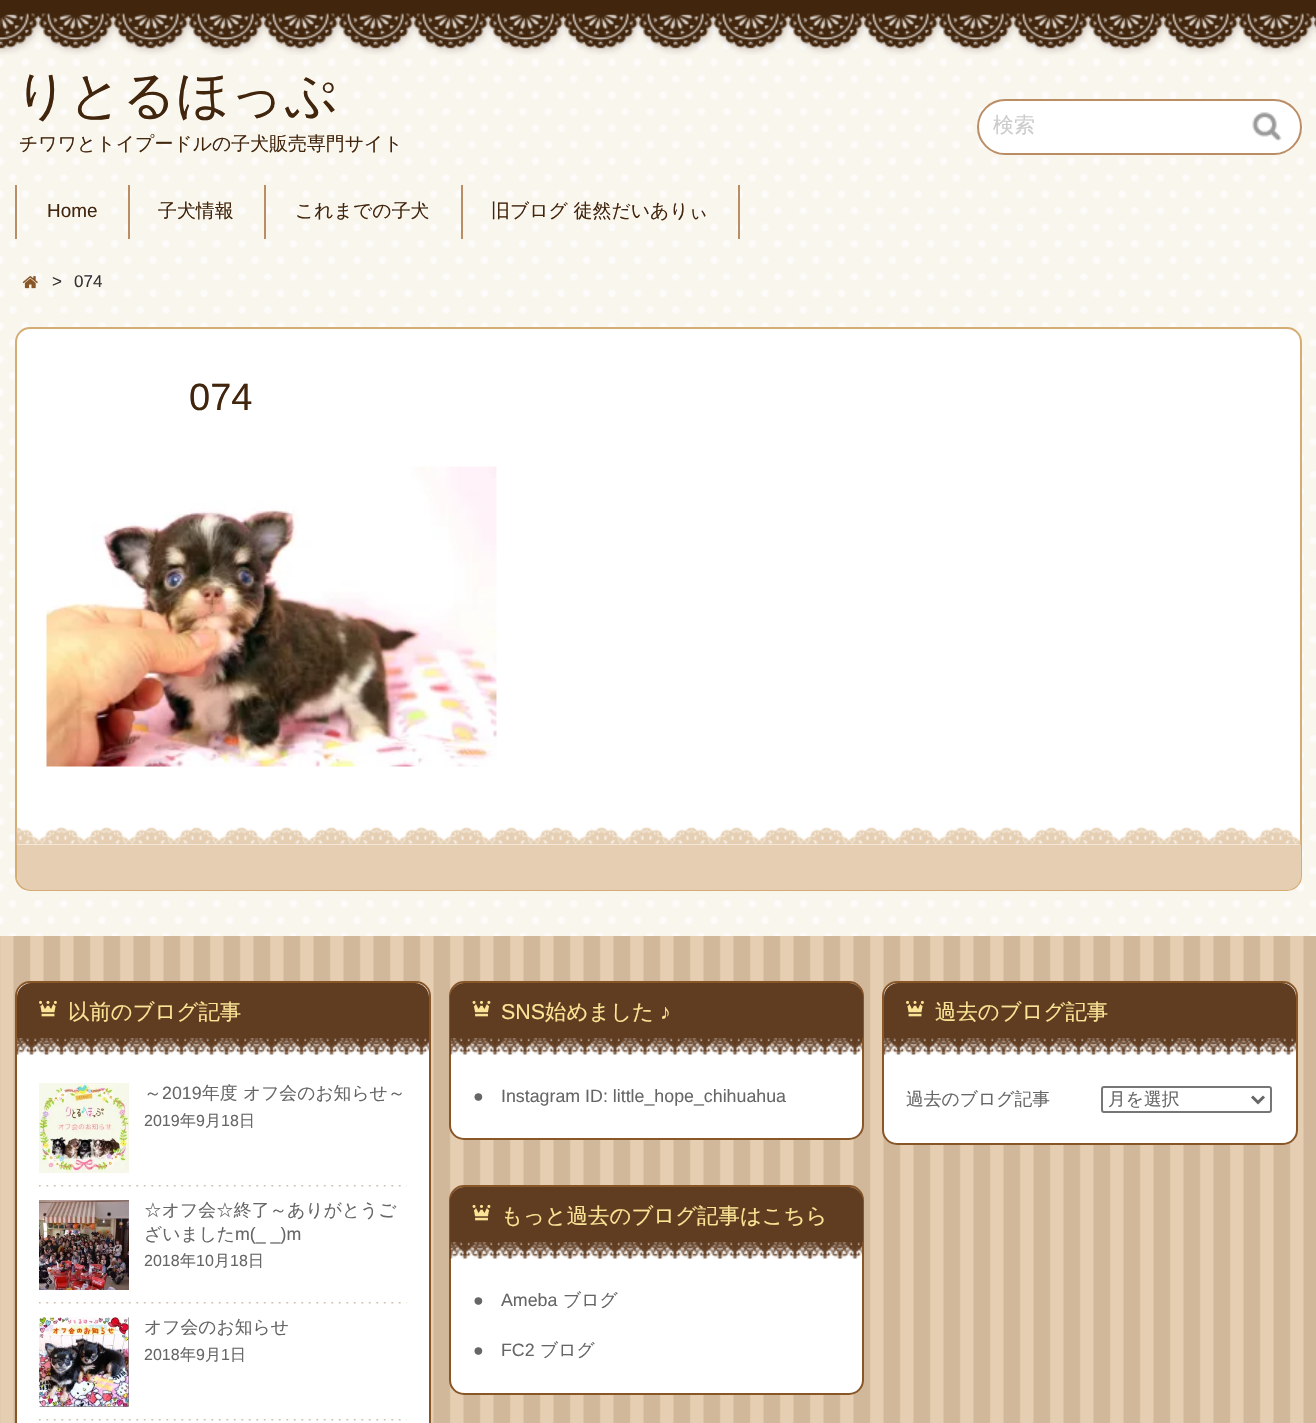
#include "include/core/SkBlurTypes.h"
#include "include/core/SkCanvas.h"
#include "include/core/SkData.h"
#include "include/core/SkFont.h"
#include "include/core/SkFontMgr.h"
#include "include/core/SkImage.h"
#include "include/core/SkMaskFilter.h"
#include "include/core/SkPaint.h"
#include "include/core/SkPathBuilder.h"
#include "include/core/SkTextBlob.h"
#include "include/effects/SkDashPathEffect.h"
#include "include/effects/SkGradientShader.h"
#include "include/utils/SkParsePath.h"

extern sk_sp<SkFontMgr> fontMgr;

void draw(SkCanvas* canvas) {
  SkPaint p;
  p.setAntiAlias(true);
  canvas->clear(SK_ColorWHITE);
  canvas->drawImageRect(SkImages::DeferredFromEncodedData(SkData::MakeFromFileName("images/1.png")), SkRect::MakeLTRB(0, 13, 1316, 936), SkSamplingOptions());
  canvas->drawImageRect(SkImages::DeferredFromEncodedData(SkData::MakeFromFileName("images/2.png")), SkRect::MakeLTRB(0, 0, 1316, 55), SkSamplingOptions());
  p.setColor(SK_ColorWHITE);
  canvas->drawRoundRect(SkRect::MakeLTRB(977, 99, 1302, 155), 28, 28, p);
  canvas->drawImageRect(SkImages::DeferredFromEncodedData(SkData::MakeFromFileName("images/3.png")), SkRect::MakeLTRB(1252, 112, 1282, 141), SkSamplingOptions());
  p.setStyle(SkPaint::kStroke_Style);
  p.setStrokeWidth(2);
  p.setColor(SkColorSetRGB(186, 141, 101));
  canvas->drawRoundRect(SkRect::MakeLTRB(978, 100, 1301, 154), 27, 27, p);
  p.setStyle(SkPaint::kFill_Style);
  p.setColor(SkColorSetRGB(254, 253, 251));
  canvas->drawRect(SkRect::MakeLTRB(17, 185, 19, 239), p);
  p.setColor(SkColorSetRGB(186, 141, 101));
  canvas->drawRect(SkRect::MakeLTRB(128, 185, 130, 239), p);
  canvas->drawRect(SkRect::MakeLTRB(15, 185, 17, 239), p);
  canvas->drawRect(SkRect::MakeLTRB(264, 185, 266, 239), p);
  canvas->drawRect(SkRect::MakeLTRB(461, 185, 463, 239), p);
  canvas->drawRect(SkRect::MakeLTRB(738, 185, 740, 239), p);
  canvas->drawImageRect(SkImages::DeferredFromEncodedData(SkData::MakeFromFileName("images/4.png")), SkRect::MakeLTRB(22, 276, 38, 289), SkSamplingOptions());
  p.setColor(SK_ColorWHITE);
  canvas->drawRoundRect(SkRect::MakeLTRB(16, 328, 1301, 890), 14, 14, p);
  p.setStyle(SkPaint::kStroke_Style);
  p.setColor(SkColorSetRGB(214, 172, 117));
  canvas->drawRoundRect(SkRect::MakeLTRB(16, 328, 1301, 890), 14, 14, p);
  canvas->drawImageRect(SkImages::DeferredFromEncodedData(SkData::MakeFromFileName("images/5.png")), SkRect::MakeLTRB(46, 466, 497, 767), SkSamplingOptions());
  canvas->drawImageRect(SkImages::DeferredFromEncodedData(SkData::MakeFromFileName("images/6.png")), SkRect::MakeLTRB(16, 827, 1301, 845), SkSamplingOptions());
  p.setStyle(SkPaint::kFill_Style);
  p.setColor(SkColorSetRGB(229, 206, 177));
  canvas->drawPath(SkPathBuilder().moveTo(17, 845).lineTo(1301, 845).lineTo(1301, 876).cubicTo(1301, 883.5f, 1294.5f, 890, 1287, 890).lineTo(31, 890).cubicTo(23.5f, 890, 17, 883.5f, 17, 876).close().detach(), p);
  canvas->drawImageRect(SkImages::DeferredFromEncodedData(SkData::MakeFromFileName("images/7.png")), SkRect::MakeLTRB(0, 936, 1316, 1423), SkSamplingOptions());
  p.setColor(SK_ColorWHITE);
  canvas->drawRoundRect(SkRect::MakeLTRB(16, 982, 430, 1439), 14, 14, p);
  p.setStyle(SkPaint::kStroke_Style);
  p.setColor(SkColorSetRGB(137, 86, 40));
  canvas->drawRoundRect(SkRect::MakeLTRB(16, 982, 430, 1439), 14, 14, p);
  p.setStyle(SkPaint::kFill_Style);
  p.setColor(SkColorSetRGB(96, 60, 33));
  canvas->drawPath(SkPathBuilder().moveTo(31, 983).lineTo(415, 983).cubicTo(422.5f, 983, 429, 989.5f, 429, 997).lineTo(429, 1038).lineTo(17, 1038).lineTo(17, 997).cubicTo(17, 989.5f, 23.5f, 983, 31, 983).close().detach(), p);
  canvas->drawImageRect(SkImages::DeferredFromEncodedData(SkData::MakeFromFileName("images/8.png")), SkRect::MakeLTRB(39, 1000, 57, 1017), SkSamplingOptions());
  canvas->drawImageRect(SkImages::DeferredFromEncodedData(SkData::MakeFromFileName("images/9.png")), SkRect::MakeLTRB(16, 1038, 429, 1055), SkSamplingOptions());
  canvas->drawImageRect(SkImages::DeferredFromEncodedData(SkData::MakeFromFileName("images/10.png")), SkRect::MakeLTRB(39, 1185, 407, 1187), SkSamplingOptions());
  canvas->drawImageRect(SkImages::DeferredFromEncodedData(SkData::MakeFromFileName("images/11.png")), SkRect::MakeLTRB(39, 1083, 129, 1173), SkSamplingOptions());
  canvas->drawImageRect(SkImages::DeferredFromEncodedData(SkData::MakeFromFileName("images/10.png")), SkRect::MakeLTRB(39, 1302, 407, 1304), SkSamplingOptions());
  canvas->drawImageRect(SkImages::DeferredFromEncodedData(SkData::MakeFromFileName("images/12.png")), SkRect::MakeLTRB(39, 1200, 129, 1290), SkSamplingOptions());
  canvas->drawImageRect(SkImages::DeferredFromEncodedData(SkData::MakeFromFileName("images/10.png")), SkRect::MakeLTRB(39, 1419, 407, 1421), SkSamplingOptions());
  canvas->drawImageRect(SkImages::DeferredFromEncodedData(SkData::MakeFromFileName("images/13.png")), SkRect::MakeLTRB(39, 1317, 129, 1407), SkSamplingOptions());
  p.setColor(SK_ColorWHITE);
  canvas->drawRoundRect(SkRect::MakeLTRB(450, 982, 863, 1139), 14, 14, p);
  p.setStyle(SkPaint::kStroke_Style);
  p.setColor(SkColorSetRGB(137, 86, 40));
  canvas->drawRoundRect(SkRect::MakeLTRB(450, 982, 863, 1139), 14, 14, p);
  p.setStyle(SkPaint::kFill_Style);
  p.setColor(SkColorSetRGB(96, 60, 33));
  canvas->drawPath(SkPathBuilder().moveTo(464, 983).lineTo(849, 983).cubicTo(856.5f, 983, 863, 989.5f, 863, 997).lineTo(863, 1038).lineTo(450, 1038).lineTo(450, 997).cubicTo(450, 989.5f, 456.5f, 983, 464, 983).close().detach(), p);
  canvas->drawImageRect(SkImages::DeferredFromEncodedData(SkData::MakeFromFileName("images/14.png")), SkRect::MakeLTRB(472, 1000, 491, 1017), SkSamplingOptions());
  canvas->drawImageRect(SkImages::DeferredFromEncodedData(SkData::MakeFromFileName("images/15.png")), SkRect::MakeLTRB(450, 1038, 863, 1055), SkSamplingOptions());
  p.setColor(SK_ColorWHITE);
  canvas->drawRoundRect(SkRect::MakeLTRB(883, 982, 1297, 1144), 14, 14, p);
  p.setStyle(SkPaint::kStroke_Style);
  p.setColor(SkColorSetRGB(137, 86, 40));
  canvas->drawRoundRect(SkRect::MakeLTRB(883, 982, 1297, 1144), 14, 14, p);
  p.setStyle(SkPaint::kFill_Style);
  p.setColor(SkColorSetRGB(96, 60, 33));
  canvas->drawPath(SkPathBuilder().moveTo(898, 983).lineTo(1282, 983).cubicTo(1289.5f, 983, 1296, 989.5f, 1296, 997).lineTo(1296, 1038).lineTo(884, 1038).lineTo(884, 997).cubicTo(884, 989.5f, 890.5f, 983, 898, 983).close().detach(), p);
  canvas->drawImageRect(SkImages::DeferredFromEncodedData(SkData::MakeFromFileName("images/8.png")), SkRect::MakeLTRB(906, 1000, 924, 1017), SkSamplingOptions());
  canvas->drawImageRect(SkImages::DeferredFromEncodedData(SkData::MakeFromFileName("images/16.png")), SkRect::MakeLTRB(883, 1038, 1296, 1055), SkSamplingOptions());
  p.setStyle(SkPaint::kStroke_Style);
  p.setColor(SkColorSetRGB(118, 118, 118));
  canvas->drawRoundRect(SkRect::MakeLTRB(1102, 1087, 1271, 1112), 2, 2, p);
  p.setStrokeWidth(3);
  p.setColor(SkColorSetRGB(102, 102, 102));
  canvas->drawPath(SkPathBuilder().moveTo(1252, 1096.5f).lineTo(1258, 1102.5f).lineTo(1264, 1096.5f).detach(), p);
  p.setStyle(SkPaint::kFill_Style);
  p.setColor(SK_ColorWHITE);
  canvas->drawRoundRect(SkRect::MakeLTRB(450, 1186, 863, 1394), 14, 14, p);
  p.setStyle(SkPaint::kStroke_Style);
  p.setStrokeWidth(2);
  p.setColor(SkColorSetRGB(137, 86, 40));
  canvas->drawRoundRect(SkRect::MakeLTRB(450, 1186, 863, 1394), 14, 14, p);
  p.setStyle(SkPaint::kFill_Style);
  p.setColor(SkColorSetRGB(96, 60, 33));
  canvas->drawPath(SkPathBuilder().moveTo(464, 1187).lineTo(849, 1187).cubicTo(856.5f, 1187, 863, 1193.5f, 863, 1201).lineTo(863, 1242).lineTo(450, 1242).lineTo(450, 1201).cubicTo(450, 1193.5f, 456.5f, 1187, 464, 1187).close().detach(), p);
  canvas->drawImageRect(SkImages::DeferredFromEncodedData(SkData::MakeFromFileName("images/14.png")), SkRect::MakeLTRB(472, 1204, 491, 1221), SkSamplingOptions());
  canvas->drawImageRect(SkImages::DeferredFromEncodedData(SkData::MakeFromFileName("images/17.png")), SkRect::MakeLTRB(450, 1242, 863, 1259), SkSamplingOptions());
  SkFont font1(fontMgr->matchFamilyStyle("WenQuanYi Zen Hei", SkFontStyle(500, SkFontStyle::kNormal_Width, SkFontStyle::kUpright_Slant)), 52.5f);
  font1.setSubpixel(true);
  p.setColor(SkColorSetRGB(65, 37, 12));
  canvas->drawString("りとるほっぷ", 15, 113, font1, p);
  SkFont font2(fontMgr->matchFamilyStyle("WenQuanYi Zen Hei", SkFontStyle(500, SkFontStyle::kNormal_Width, SkFontStyle::kUpright_Slant)), 18.9f);
  font2.setSubpixel(true);
  canvas->drawString("チワワとトイプードルの子犬販売専門サイト", 19, 150, font2, p);
  SkFont font3(fontMgr->matchFamilyStyle("WenQuanYi Zen Hei", SkFontStyle(500, SkFontStyle::kNormal_Width, SkFontStyle::kUpright_Slant)), 21);
  font3.setSubpixel(true);
  p.setColor(SkColorSetRGB(204, 204, 204));
  canvas->drawString("検索", 993, 132, font3, p);
  SkFont font4(fontMgr->matchFamilyStyle("Liberation Sans", SkFontStyle::Normal()), 18.9f);
  font4.setSubpixel(true);
  p.setColor(SkColorSetRGB(65, 37, 12));
  canvas->drawString("Home", 47, 217, font4, p);
  canvas->drawString("子犬情報", 158, 217, font2, p);
  canvas->drawString("これまでの子犬", 295, 217, font2, p);
  canvas->drawString("旧ブログ 徒然だいありぃ", 491, 217, font2, p);
  SkFont font5(fontMgr->matchFamilyStyle("Liberation Sans", SkFontStyle::Normal()), 17);
  font5.setSubpixel(true);
  p.setColor(SkColorSetRGB(51, 51, 51));
  canvas->drawString(">", 52, 287, font5, p);
  canvas->drawString("074", 74, 287, font5, p);
  SkFont font6(fontMgr->matchFamilyStyle("Liberation Sans", SkFontStyle::Normal()), 38);
  font6.setSubpixel(true);
  p.setColor(SkColorSetRGB(65, 37, 12));
  canvas->drawString("074", 189, 410, font6, p);
  SkFont font7(fontMgr->matchFamilyStyle("WenQuanYi Zen Hei", SkFontStyle(500, SkFontStyle::kNormal_Width, SkFontStyle::kUpright_Slant)), 21.4f);
  font7.setSubpixel(true);
  p.setColor(SkColorSetRGB(250, 228, 149));
  canvas->drawString("以前のブログ記事", 68, 1019, font7, p);
  SkFont font8(fontMgr->matchFamilyStyle("WenQuanYi Zen Hei", SkFontStyle(500, SkFontStyle::kNormal_Width, SkFontStyle::kUpright_Slant)), 17.8f);
  font8.setSubpixel(true);
  p.setColor(SkColorSetRGB(102, 102, 102));
  canvas->drawString("～", 144, 1099, font8, p);
  SkFont font9(fontMgr->matchFamilyStyle("Liberation Sans", SkFontStyle::Normal()), 17.8f);
  font9.setSubpixel(true);
  canvas->drawString("2019", 162, 1099, font9, p);
  canvas->drawString("年度 オフ会のお知らせ～", 202, 1099, font8, p);
  SkFont font10(fontMgr->matchFamilyStyle("Liberation Sans", SkFontStyle::Normal()), 16);
  font10.setSubpixel(true);
  canvas->drawString("2019", 144, 1126, font10, p);
  SkFont font11(fontMgr->matchFamilyStyle("WenQuanYi Zen Hei", SkFontStyle(500, SkFontStyle::kNormal_Width, SkFontStyle::kUpright_Slant)), 16);
  font11.setSubpixel(true);
  canvas->drawString("年", 180, 1126, font11, p);
  canvas->drawString("9", 196, 1126, font10, p);
  canvas->drawString("月", 205, 1126, font11, p);
  canvas->drawString("18", 221, 1126, font10, p);
  canvas->drawString("日", 239, 1126, font11, p);
  canvas->drawString("☆オフ会☆終了～ありがとうご", 144, 1216, font8, p);
  canvas->drawString("ざいました", 144, 1240, font8, p);
  canvas->drawString("m(_ _)m", 235, 1240, font9, p);
  canvas->drawString("2018", 144, 1266, font10, p);
  canvas->drawString("年", 180, 1266, font11, p);
  canvas->drawString("10", 196, 1266, font10, p);
  canvas->drawString("月", 214, 1266, font11, p);
  canvas->drawString("18", 230, 1266, font10, p);
  canvas->drawString("日", 248, 1266, font11, p);
  canvas->drawString("オフ会のお知らせ", 144, 1333, font8, p);
  canvas->drawString("2018", 144, 1360, font10, p);
  canvas->drawString("年", 180, 1360, font11, p);
  canvas->drawString("9", 196, 1360, font10, p);
  canvas->drawString("月", 205, 1360, font11, p);
  canvas->drawString("1", 221, 1360, font10, p);
  canvas->drawString("日", 230, 1360, font11, p);
  SkFont font12(fontMgr->matchFamilyStyle("Liberation Sans", SkFontStyle::Normal()), 21.4f);
  font12.setSubpixel(true);
  p.setColor(SkColorSetRGB(250, 228, 149));
  canvas->drawString("SNS", 501, 1019, font12, p);
  canvas->drawString("始めました", 545, 1019, font7, p);
  canvas->drawString("♪", 660, 1019, font12, p);
  p.setColor(SkColorSetRGB(102, 102, 102));
  canvas->drawString("●", 473, 1102, font9, p);
  canvas->drawString("Instagram ID: little_hope_chihuahua", 501, 1102, font9, p);
  p.setColor(SkColorSetRGB(250, 228, 149));
  canvas->drawString("過去のブログ記事", 935, 1019, font7, p);
  p.setColor(SkColorSetRGB(102, 102, 102));
  canvas->drawString("過去のブログ記事", 906, 1105, font8, p);
  canvas->drawString("月を選択", 1108, 1105, font8, p);
  p.setColor(SkColorSetRGB(250, 228, 149));
  canvas->drawString("もっと過去のブログ記事はこちら", 501, 1223, font7, p);
  p.setColor(SkColorSetRGB(102, 102, 102));
  canvas->drawString("●", 473, 1306, font9, p);
  canvas->drawString("Ameba", 501, 1306, font9, p);
  canvas->drawString("ブログ", 563, 1306, font8, p);
  canvas->drawString("●", 473, 1356, font9, p);
  canvas->drawString("FC2", 501, 1356, font9, p);
  canvas->drawString("ブログ", 540, 1356, font8, p);
}
